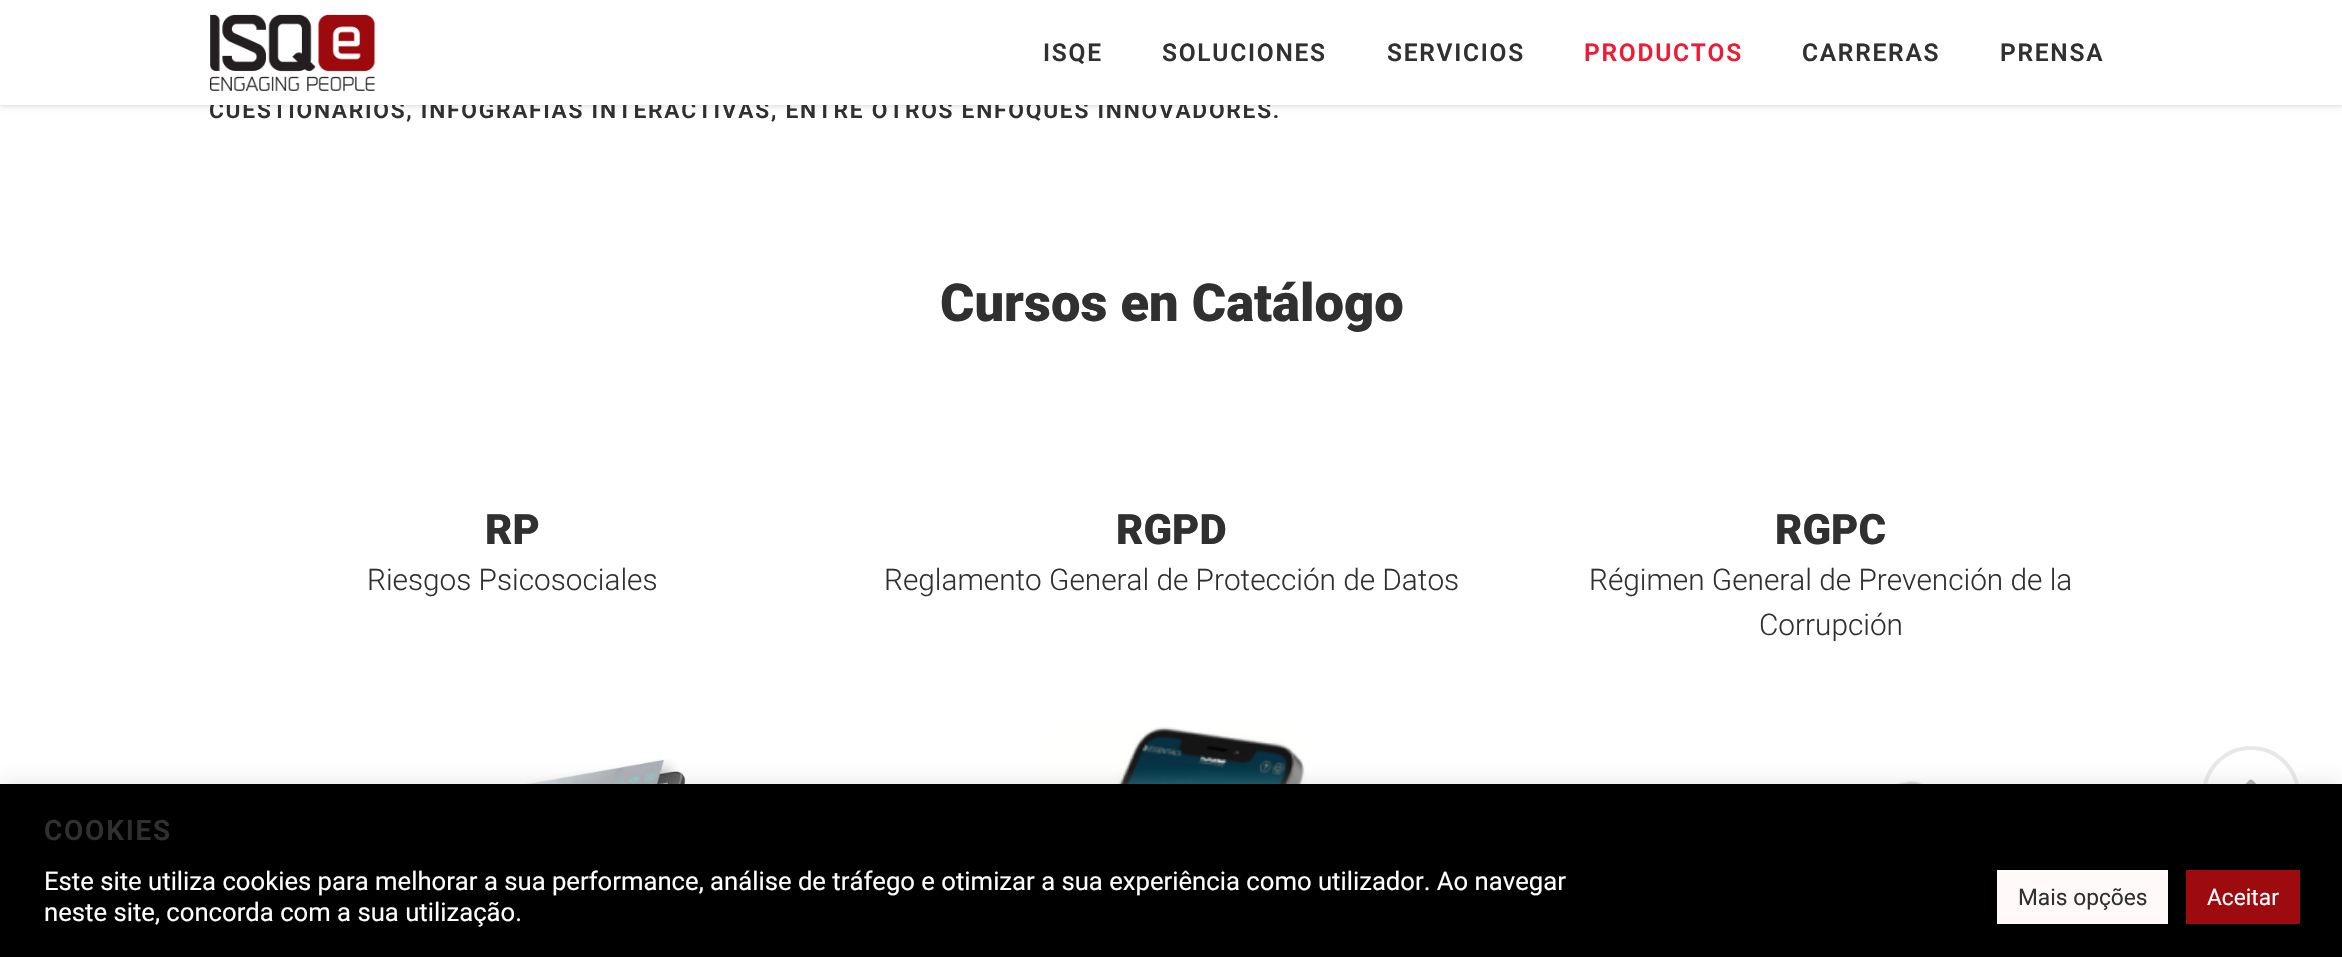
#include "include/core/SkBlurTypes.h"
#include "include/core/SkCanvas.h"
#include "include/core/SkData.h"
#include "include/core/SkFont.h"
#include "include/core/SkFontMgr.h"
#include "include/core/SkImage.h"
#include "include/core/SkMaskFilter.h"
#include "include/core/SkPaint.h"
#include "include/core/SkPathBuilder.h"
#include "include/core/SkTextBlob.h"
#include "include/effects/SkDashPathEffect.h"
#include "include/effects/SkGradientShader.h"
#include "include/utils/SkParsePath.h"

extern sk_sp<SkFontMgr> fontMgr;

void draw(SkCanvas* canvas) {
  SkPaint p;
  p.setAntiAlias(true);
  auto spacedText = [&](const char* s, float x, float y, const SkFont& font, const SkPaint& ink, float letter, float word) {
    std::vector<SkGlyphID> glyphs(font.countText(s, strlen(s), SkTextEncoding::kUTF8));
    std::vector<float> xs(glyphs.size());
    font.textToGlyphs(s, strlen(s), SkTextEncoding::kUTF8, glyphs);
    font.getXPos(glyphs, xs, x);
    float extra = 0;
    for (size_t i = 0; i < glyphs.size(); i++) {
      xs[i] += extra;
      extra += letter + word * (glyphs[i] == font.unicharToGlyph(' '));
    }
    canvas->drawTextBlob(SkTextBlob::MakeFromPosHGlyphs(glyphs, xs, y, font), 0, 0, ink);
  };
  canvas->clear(SK_ColorWHITE);
  p.setColor(SkColorSetARGB(28, 0, 0, 0));
  p.setMaskFilter(SkMaskFilter::MakeBlur(kNormal_SkBlurStyle, 2.5f));
  canvas->drawRect(SkRect::MakeLTRB(0, 2, 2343, 107), p);
  p.setMaskFilter(nullptr);
  canvas->drawImageRect(SkImages::DeferredFromEncodedData(SkData::MakeFromFileName("images/2.png")), SkRect::MakeLTRB(525, 759, 686, 784), SkSamplingOptions());
  canvas->drawImageRect(SkImages::DeferredFromEncodedData(SkData::MakeFromFileName("images/3.png")), SkRect::MakeLTRB(1044, 727, 1305, 784), SkSamplingOptions());
  canvas->drawImageRect(SkImages::DeferredFromEncodedData(SkData::MakeFromFileName("images/4.png")), SkRect::MakeLTRB(1642, 780, 1957, 784), SkSamplingOptions());
  p.setStyle(SkPaint::kStroke_Style);
  p.setStrokeWidth(4);
  p.setColor(SkColorSetRGB(232, 232, 232));
  canvas->drawCircle(2251, 795, 47, p);
  canvas->drawImageRect(SkImages::DeferredFromEncodedData(SkData::MakeFromFileName("images/5.png")), SkRect::MakeLTRB(2245, 779, 2257, 784), SkSamplingOptions());
  p.setStyle(SkPaint::kFill_Style);
  p.setColor(SkColorSetARGB(77, 172, 171, 171));
  p.setMaskFilter(SkMaskFilter::MakeBlur(kNormal_SkBlurStyle, 9));
  canvas->drawRect(SkRect::MakeLTRB(0, 782, 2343, 956), p);
  p.setMaskFilter(nullptr);
  p.setColor(SK_ColorBLACK);
  canvas->drawRect(SkRect::MakeLTRB(0, 784, 2342, 957), p);
  p.setColor(SkColorSetRGB(255, 249, 249));
  canvas->drawRect(SkRect::MakeLTRB(1997, 870, 2168, 924), p);
  p.setColor(SkColorSetRGB(157, 11, 15));
  canvas->drawRect(SkRect::MakeLTRB(2186, 870, 2300, 924), p);
  SkFont font1(fontMgr->matchFamilyStyle("Roboto", SkFontStyle(600, SkFontStyle::kNormal_Width, SkFontStyle::kUpright_Slant)), 22.75f);
  font1.setSubpixel(true);
  p.setColor(SkColorSetRGB(48, 48, 48));
  spacedText("CUESTIONARIOS, INFOGRAFÍAS INTERACTIVAS, ENTRE OTROS ENFOQUES INNOVADORES.", 209, 118, font1, p, 1.75f, 0);
  p.setColor(SK_ColorWHITE);
  canvas->drawRect(SkRect::MakeLTRB(0, 0, 2342, 105), p);
  SkFont font2(fontMgr->matchFamilyStyle("Roboto", SkFontStyle(600, SkFontStyle::kNormal_Width, SkFontStyle::kUpright_Slant)), 24.5f);
  font2.setSubpixel(true);
  p.setColor(SkColorSetRGB(48, 48, 48));
  spacedText("PRENSA", 2000, 61, font2, p, 1.75f, 0);
  spacedText("CARRERAS", 1802, 61, font2, p, 1.75f, 0);
  p.setColor(SkColorSetRGB(237, 27, 52));
  spacedText("PRODUCTOS", 1584, 61, font2, p, 1.75f, 0);
  p.setColor(SkColorSetRGB(48, 48, 48));
  spacedText("SERVICIOS", 1387, 61, font2, p, 1.75f, 0);
  spacedText("SOLUCIONES", 1162, 61, font2, p, 1.75f, 0);
  spacedText("ISQE", 1043, 61, font2, p, 1.75f, 0);
  canvas->drawImageRect(SkImages::DeferredFromEncodedData(SkData::MakeFromFileName("images/1.png")), SkRect::MakeLTRB(210, 14, 375, 91), SkSamplingOptions());
  SkFont font3(fontMgr->matchFamilyStyle("Roboto", SkFontStyle(900, SkFontStyle::kNormal_Width, SkFontStyle::kUpright_Slant)), 52.5f);
  font3.setSubpixel(true);
  canvas->drawString("Cursos en Catálogo", 940, 321, font3, p);
  SkFont font4(fontMgr->matchFamilyStyle("Roboto", SkFontStyle(900, SkFontStyle::kNormal_Width, SkFontStyle::kUpright_Slant)), 42);
  font4.setSubpixel(true);
  canvas->drawString("RP", 485, 544, font4, p);
  SkFont font5(fontMgr->matchFamilyStyle("Roboto", SkFontStyle(300, SkFontStyle::kNormal_Width, SkFontStyle::kUpright_Slant)), 29.75f);
  font5.setSubpixel(true);
  canvas->drawString("Riesgos Psicosociales", 367, 590, font5, p);
  canvas->drawString("RGPD", 1116, 544, font4, p);
  canvas->drawString("Reglamento General de Protección de Datos", 884, 590, font5, p);
  canvas->drawString("RGPC", 1775, 544, font4, p);
  canvas->drawString("Régimen General de Prevención de la", 1589, 590, font5, p);
  canvas->drawString("Corrupción", 1759, 635, font5, p);
  SkFont font6(fontMgr->matchFamilyStyle("Roboto", SkFontStyle(600, SkFontStyle::kNormal_Width, SkFontStyle::kUpright_Slant)), 28);
  font6.setSubpixel(true);
  spacedText("COOKIES", 44, 840, font6, p, 1.75f, 0);
  SkFont font7(fontMgr->matchFamilyStyle("Roboto", SkFontStyle::Normal()), 25.67f);
  font7.setSubpixel(true);
  p.setColor(SK_ColorWHITE);
  canvas->drawString("Este site utiliza cookies para melhorar a sua performance, análise de tráfego e otimizar a sua experiência como utilizador. Ao navegar", 44, 890, font7, p);
  canvas->drawString("neste site, concorda com a sua utilização.", 44, 921, font7, p);
  SkFont font8(fontMgr->matchFamilyStyle("Roboto", SkFontStyle::Normal()), 22.75f);
  font8.setSubpixel(true);
  p.setColor(SkColorSetRGB(48, 48, 48));
  canvas->drawString("Mais opções", 2018, 905, font8, p);
  p.setColor(SK_ColorWHITE);
  canvas->drawString("Aceitar", 2207, 905, font8, p);
}
